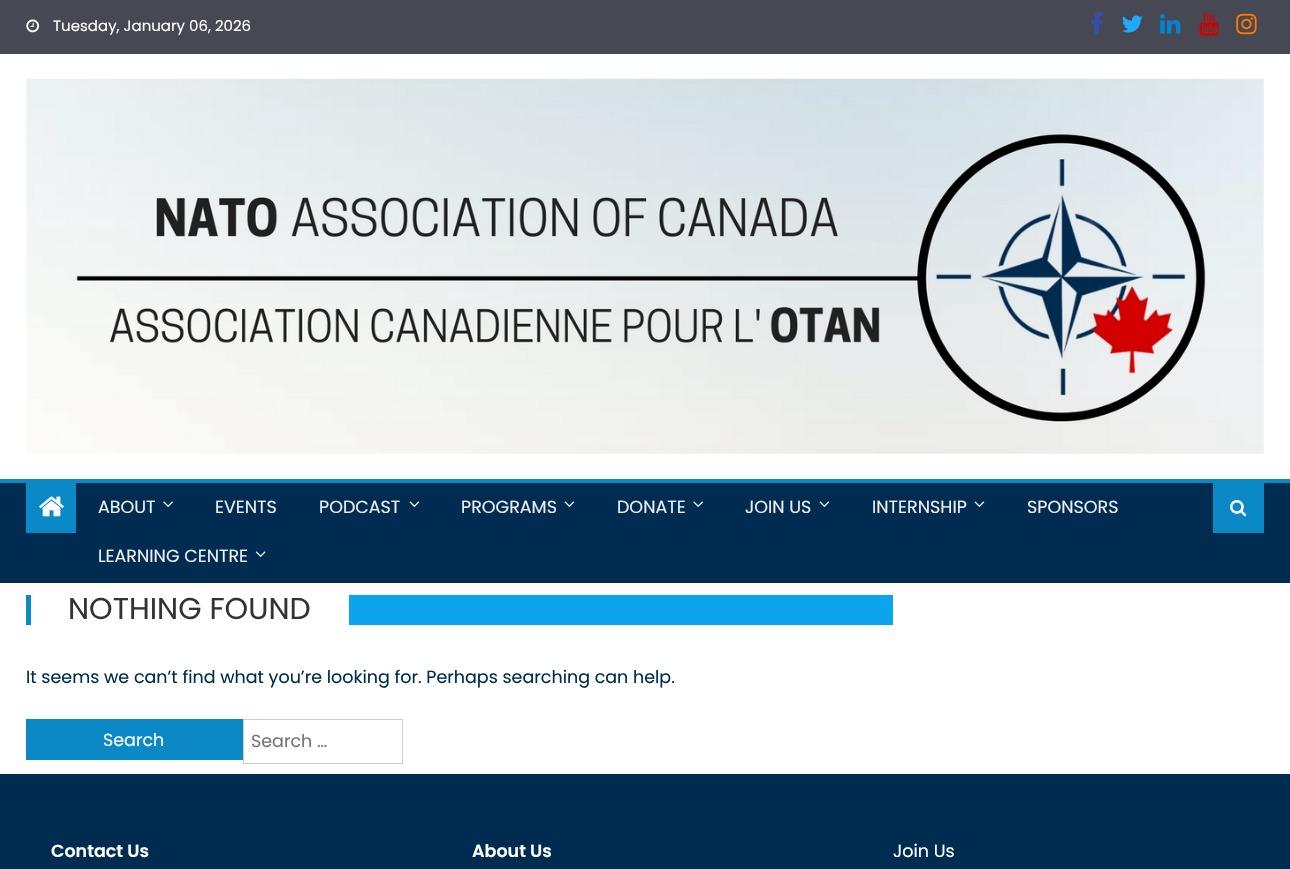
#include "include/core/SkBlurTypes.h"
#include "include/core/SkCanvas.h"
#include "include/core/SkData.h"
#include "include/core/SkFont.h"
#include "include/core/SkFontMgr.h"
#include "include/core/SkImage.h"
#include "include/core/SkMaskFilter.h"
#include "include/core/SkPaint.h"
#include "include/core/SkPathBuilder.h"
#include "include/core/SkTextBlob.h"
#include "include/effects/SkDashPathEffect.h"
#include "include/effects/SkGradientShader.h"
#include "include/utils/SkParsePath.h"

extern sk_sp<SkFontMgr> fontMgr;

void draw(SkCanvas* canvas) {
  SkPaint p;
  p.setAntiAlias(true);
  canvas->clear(SK_ColorWHITE);
  p.setColor(SkColorSetRGB(70, 73, 84));
  canvas->drawRect(SkRect::MakeLTRB(0, 0, 1290, 54), p);
  canvas->drawImageRect(SkImages::DeferredFromEncodedData(SkData::MakeFromFileName("images/1.png")), SkRect::MakeLTRB(26, 19, 40, 33), SkSamplingOptions());
  canvas->drawImageRect(SkImages::DeferredFromEncodedData(SkData::MakeFromFileName("images/2.png")), SkRect::MakeLTRB(1091, 12, 1103, 35), SkSamplingOptions());
  canvas->drawImageRect(SkImages::DeferredFromEncodedData(SkData::MakeFromFileName("images/3.png")), SkRect::MakeLTRB(1122, 15, 1143, 33), SkSamplingOptions());
  canvas->drawImageRect(SkImages::DeferredFromEncodedData(SkData::MakeFromFileName("images/4.png")), SkRect::MakeLTRB(1160, 14, 1181, 34), SkSamplingOptions());
  canvas->drawImageRect(SkImages::DeferredFromEncodedData(SkData::MakeFromFileName("images/5.png")), SkRect::MakeLTRB(1199, 12, 1219, 36), SkSamplingOptions());
  canvas->drawImageRect(SkImages::DeferredFromEncodedData(SkData::MakeFromFileName("images/6.png")), SkRect::MakeLTRB(1236, 13, 1257, 35), SkSamplingOptions());
  canvas->drawImageRect(SkImages::DeferredFromEncodedData(SkData::MakeFromFileName("images/7.png")), SkRect::MakeLTRB(26, 78, 1264, 454), SkSamplingOptions());
  p.setColor(SkColorSetRGB(0, 44, 81));
  canvas->drawRect(SkRect::MakeLTRB(0, 483, 1290, 583), p);
  p.setColor(SkColorSetRGB(11, 137, 198));
  canvas->drawRect(SkRect::MakeLTRB(0, 479, 1290, 483), p);
  canvas->drawRect(SkRect::MakeLTRB(26, 483, 76, 533), p);
  canvas->drawImageRect(SkImages::DeferredFromEncodedData(SkData::MakeFromFileName("images/8.png")), SkRect::MakeLTRB(39, 496, 64, 517), SkSamplingOptions());
  canvas->drawImageRect(SkImages::DeferredFromEncodedData(SkData::MakeFromFileName("images/9.png")), SkRect::MakeLTRB(163, 501, 173, 507), SkSamplingOptions());
  canvas->drawImageRect(SkImages::DeferredFromEncodedData(SkData::MakeFromFileName("images/10.png")), SkRect::MakeLTRB(409, 501, 420, 507), SkSamplingOptions());
  canvas->drawImageRect(SkImages::DeferredFromEncodedData(SkData::MakeFromFileName("images/10.png")), SkRect::MakeLTRB(564, 501, 575, 507), SkSamplingOptions());
  canvas->drawImageRect(SkImages::DeferredFromEncodedData(SkData::MakeFromFileName("images/9.png")), SkRect::MakeLTRB(693, 501, 703, 507), SkSamplingOptions());
  canvas->drawImageRect(SkImages::DeferredFromEncodedData(SkData::MakeFromFileName("images/10.png")), SkRect::MakeLTRB(819, 501, 830, 507), SkSamplingOptions());
  canvas->drawImageRect(SkImages::DeferredFromEncodedData(SkData::MakeFromFileName("images/10.png")), SkRect::MakeLTRB(974, 501, 985, 507), SkSamplingOptions());
  canvas->drawImageRect(SkImages::DeferredFromEncodedData(SkData::MakeFromFileName("images/11.png")), SkRect::MakeLTRB(255, 551, 266, 557), SkSamplingOptions());
  canvas->drawRect(SkRect::MakeLTRB(1213, 483, 1264, 533), p);
  canvas->drawImageRect(SkImages::DeferredFromEncodedData(SkData::MakeFromFileName("images/12.png")), SkRect::MakeLTRB(1230, 500, 1247, 517), SkSamplingOptions());
  p.setColor(SkColorSetRGB(13, 164, 238));
  canvas->drawRect(SkRect::MakeLTRB(349, 595, 893, 625), p);
  p.setColor(SkColorSetRGB(11, 137, 198));
  canvas->drawRect(SkRect::MakeLTRB(26, 595, 31, 625), p);
  canvas->drawRect(SkRect::MakeLTRB(26, 719, 243, 760), p);
  p.setStyle(SkPaint::kStroke_Style);
  p.setStrokeWidth(1);
  p.setColor(SkColorSetRGB(204, 204, 204));
  canvas->drawRect(SkRect::MakeLTRB(243.5f, 719.5f, 402.5f, 763.5f), p);
  p.setStyle(SkPaint::kFill_Style);
  p.setColor(SkColorSetRGB(0, 44, 81));
  canvas->drawRect(SkRect::MakeLTRB(0, 774, 1290, 869), p);
  SkFont font1(fontMgr->matchFamilyStyle("Poppins", SkFontStyle::Normal()), 15);
  font1.setSubpixel(true);
  p.setColor(SK_ColorWHITE);
  canvas->drawString("Tuesday, January 06, 2026", 53, 31, font1, p);
  SkFont font2(fontMgr->matchFamilyStyle("Poppins", SkFontStyle::Normal()), 17.5f);
  font2.setSubpixel(true);
  p.setColor(SkColorSetRGB(238, 238, 238));
  canvas->drawString("ABOUT", 98, 513, font2, p);
  canvas->drawString("EVENTS", 215, 513, font2, p);
  canvas->drawString("PODCAST", 319, 513, font2, p);
  canvas->drawString("PROGRAMS", 461, 513, font2, p);
  canvas->drawString("DONATE", 617, 513, font2, p);
  canvas->drawString("JOIN US", 745, 513, font2, p);
  canvas->drawString("INTERNSHIP", 872, 513, font2, p);
  canvas->drawString("SPONSORS", 1027, 513, font2, p);
  canvas->drawString("LEARNING CENTRE", 98, 562, font2, p);
  SkFont font3(fontMgr->matchFamilyStyle("Poppins", SkFontStyle::Normal()), 30);
  font3.setSubpixel(true);
  p.setColor(SkColorSetRGB(51, 51, 51));
  canvas->drawString("NOTHING FOUND", 68, 619, font3, p);
  p.setColor(SkColorSetRGB(0, 44, 81));
  canvas->drawString("It seems we can’t find what you’re looking for. Perhaps searching can help.", 26, 683, font2, p);
  p.setColor(SK_ColorWHITE);
  canvas->drawString("Search", 103, 746, font2, p);
  p.setColor(SkColorSetRGB(117, 117, 117));
  canvas->drawString("Search …", 251, 747, font2, p);
  SkFont font4(fontMgr->matchFamilyStyle("Poppins", SkFontStyle(600, SkFontStyle::kNormal_Width, SkFontStyle::kUpright_Slant)), 17.5f);
  font4.setSubpixel(true);
  p.setColor(SK_ColorWHITE);
  canvas->drawString("Contact Us", 51, 857, font4, p);
  canvas->drawString("About Us", 472, 857, font4, p);
  canvas->drawString("Join Us", 893, 857, font2, p);
}
